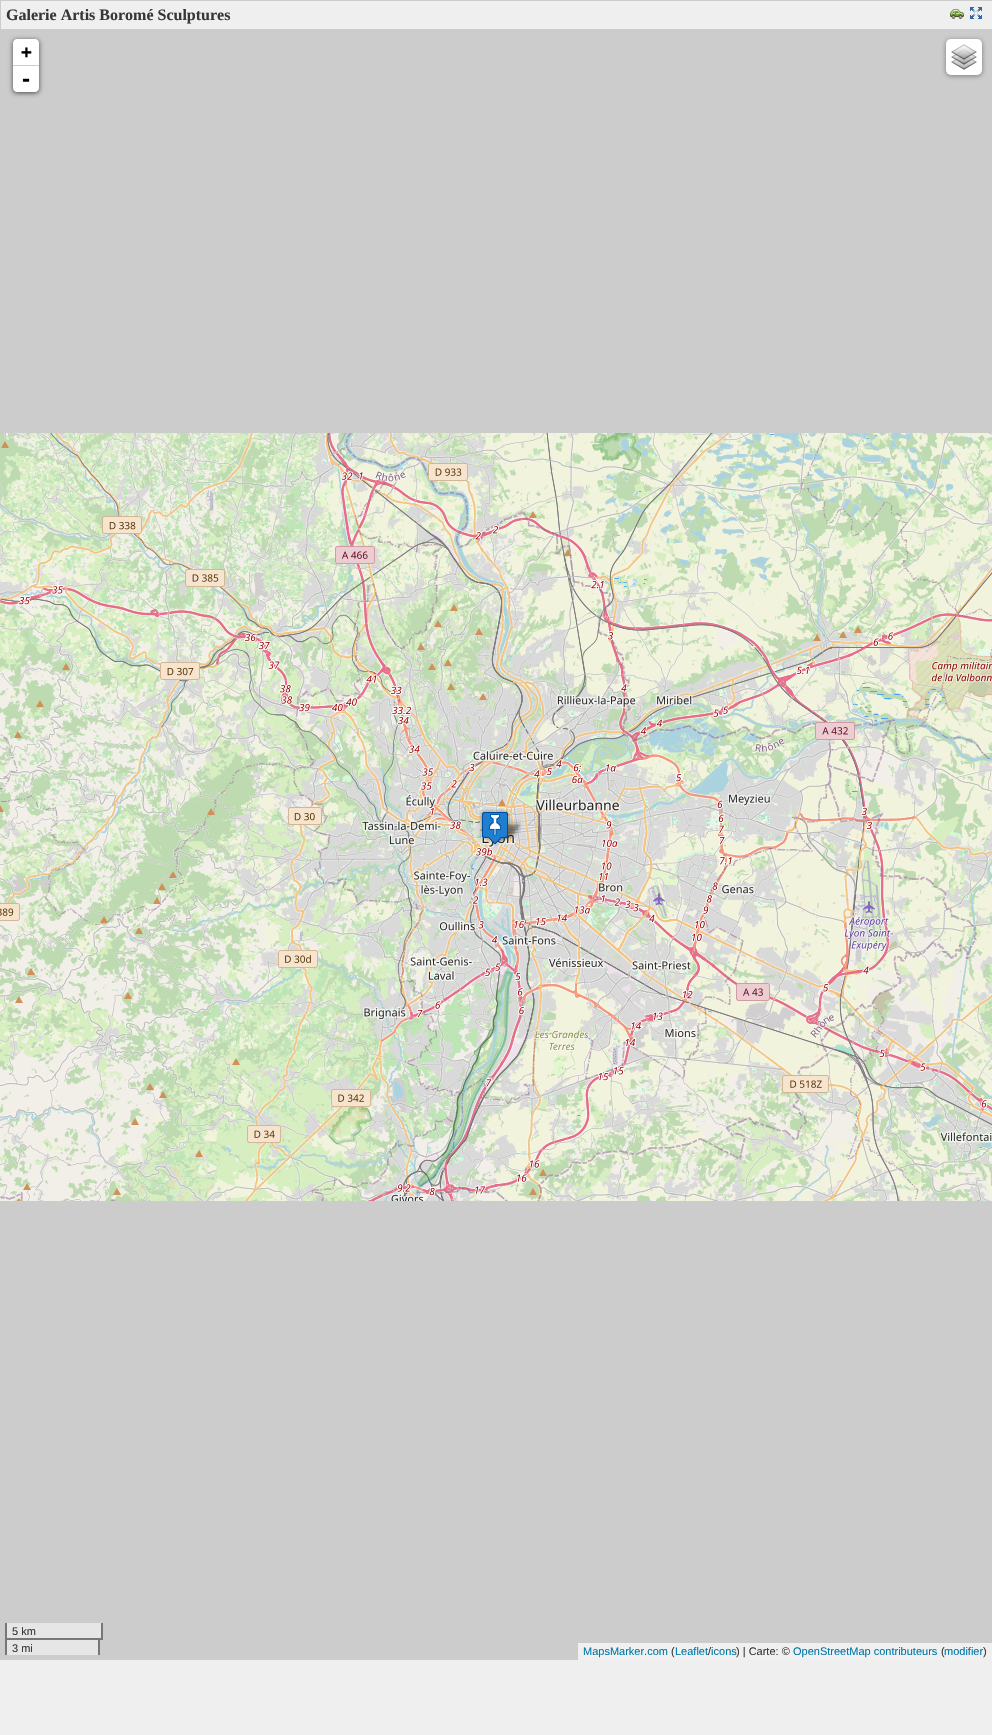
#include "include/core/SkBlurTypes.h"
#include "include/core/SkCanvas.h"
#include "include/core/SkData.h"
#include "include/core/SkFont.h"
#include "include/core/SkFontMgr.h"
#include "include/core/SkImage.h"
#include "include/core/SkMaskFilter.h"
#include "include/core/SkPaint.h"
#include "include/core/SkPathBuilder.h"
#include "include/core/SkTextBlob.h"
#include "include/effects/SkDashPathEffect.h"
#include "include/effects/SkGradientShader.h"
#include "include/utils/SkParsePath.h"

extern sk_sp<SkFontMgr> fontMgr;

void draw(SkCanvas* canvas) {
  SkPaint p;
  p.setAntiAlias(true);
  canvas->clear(SkColorSetRGB(239, 239, 239));
  p.setColor(SkColorSetRGB(204, 204, 204));
  canvas->drawRect(SkRect::MakeLTRB(0, 0, 992, 1), p);
  canvas->drawRect(SkRect::MakeLTRB(0, 0, 1, 29), p);
  canvas->drawImageRect(SkImages::DeferredFromEncodedData(SkData::MakeFromFileName("images/1.png")), SkRect::MakeLTRB(950, 9, 964, 19), SkSamplingOptions());
  canvas->drawImageRect(SkImages::DeferredFromEncodedData(SkData::MakeFromFileName("images/2.png")), SkRect::MakeLTRB(970, 7, 982, 19), SkSamplingOptions());
  canvas->drawRect(SkRect::MakeLTRB(0, 29, 992, 1660), p);
  p.setColor(SkColorSetRGB(230, 230, 230));
  canvas->drawRect(SkRect::MakeLTRB(7, 1640, 98, 1655), p);
  p.setColor(SkColorSetARGB(166, 0, 0, 0));
  p.setMaskFilter(SkMaskFilter::MakeBlur(kNormal_SkBlurStyle, 2.5f));
  canvas->drawRoundRect(SkRect::MakeLTRB(13, 40, 39, 93), 4, 4, p);
  p.setMaskFilter(nullptr);
  p.setColor(SK_ColorWHITE);
  canvas->drawPath(SkPathBuilder().moveTo(17, 39).lineTo(35, 39).cubicTo(37, 39, 39, 41, 39, 43).lineTo(39, 66).lineTo(13, 66).lineTo(13, 43).cubicTo(13, 41, 15, 39, 17, 39).close().detach(), p);
  p.setColor(SkColorSetRGB(204, 204, 204));
  canvas->drawRect(SkRect::MakeLTRB(13, 65, 39, 66), p);
  p.setColor(SK_ColorWHITE);
  canvas->drawPath(SkPathBuilder().moveTo(13, 66).lineTo(39, 66).lineTo(39, 88).cubicTo(39, 90, 37, 92, 35, 92).lineTo(17, 92).cubicTo(15, 92, 13, 90, 13, 88).close().detach(), p);
  p.setColor(SkColorSetARGB(102, 0, 0, 0));
  p.setMaskFilter(SkMaskFilter::MakeBlur(kNormal_SkBlurStyle, 2.5f));
  canvas->drawRoundRect(SkRect::MakeLTRB(946, 40, 982, 76), 5, 5, p);
  p.setMaskFilter(nullptr);
  p.setColor(SK_ColorWHITE);
  canvas->drawRoundRect(SkRect::MakeLTRB(946, 39, 982, 75), 5, 5, p);
  canvas->drawImageRect(SkImages::DeferredFromEncodedData(SkData::MakeFromFileName("images/3.png")), SkRect::MakeLTRB(951, 44, 977, 70), SkSamplingOptions());
  p.setColor(SkColorSetRGB(230, 230, 230));
  canvas->drawRect(SkRect::MakeLTRB(7, 1623, 101, 1638), p);
  p.setColor(SkColorSetRGB(119, 119, 119));
  canvas->drawRect(SkRect::MakeLTRB(101, 1623, 103, 1640), p);
  canvas->drawRect(SkRect::MakeLTRB(100, 1638, 103, 1640), p);
  canvas->drawRect(SkRect::MakeLTRB(5, 1623, 7, 1640), p);
  canvas->drawRect(SkRect::MakeLTRB(5, 1638, 100, 1640), p);
  canvas->drawRect(SkRect::MakeLTRB(98, 1638, 100, 1655), p);
  canvas->drawRect(SkRect::MakeLTRB(5, 1638, 7, 1655), p);
  p.setColor(SkColorSetRGB(240, 240, 240));
  canvas->drawRect(SkRect::MakeLTRB(578, 1643, 992, 1660), p);
  canvas->drawImageRect(SkImages::DeferredFromEncodedData(SkData::MakeFromFileName("images/4.png")), SkRect::MakeLTRB(0, 433, 117, 689), SkSamplingOptions());
  canvas->drawImageRect(SkImages::DeferredFromEncodedData(SkData::MakeFromFileName("images/5.png")), SkRect::MakeLTRB(117, 433, 373, 689), SkSamplingOptions());
  canvas->drawImageRect(SkImages::DeferredFromEncodedData(SkData::MakeFromFileName("images/6.png")), SkRect::MakeLTRB(373, 433, 629, 689), SkSamplingOptions());
  canvas->drawImageRect(SkImages::DeferredFromEncodedData(SkData::MakeFromFileName("images/7.png")), SkRect::MakeLTRB(629, 433, 885, 689), SkSamplingOptions());
  canvas->drawImageRect(SkImages::DeferredFromEncodedData(SkData::MakeFromFileName("images/8.png")), SkRect::MakeLTRB(885, 433, 992, 689), SkSamplingOptions());
  canvas->drawImageRect(SkImages::DeferredFromEncodedData(SkData::MakeFromFileName("images/9.png")), SkRect::MakeLTRB(0, 689, 117, 945), SkSamplingOptions());
  canvas->drawImageRect(SkImages::DeferredFromEncodedData(SkData::MakeFromFileName("images/10.png")), SkRect::MakeLTRB(117, 689, 373, 945), SkSamplingOptions());
  canvas->drawImageRect(SkImages::DeferredFromEncodedData(SkData::MakeFromFileName("images/11.png")), SkRect::MakeLTRB(373, 689, 629, 945), SkSamplingOptions());
  canvas->drawImageRect(SkImages::DeferredFromEncodedData(SkData::MakeFromFileName("images/12.png")), SkRect::MakeLTRB(629, 689, 885, 945), SkSamplingOptions());
  canvas->drawImageRect(SkImages::DeferredFromEncodedData(SkData::MakeFromFileName("images/13.png")), SkRect::MakeLTRB(885, 689, 992, 945), SkSamplingOptions());
  canvas->drawImageRect(SkImages::DeferredFromEncodedData(SkData::MakeFromFileName("images/14.png")), SkRect::MakeLTRB(0, 945, 117, 1201), SkSamplingOptions());
  canvas->drawImageRect(SkImages::DeferredFromEncodedData(SkData::MakeFromFileName("images/15.png")), SkRect::MakeLTRB(117, 945, 373, 1201), SkSamplingOptions());
  canvas->drawImageRect(SkImages::DeferredFromEncodedData(SkData::MakeFromFileName("images/16.png")), SkRect::MakeLTRB(373, 945, 629, 1201), SkSamplingOptions());
  canvas->drawImageRect(SkImages::DeferredFromEncodedData(SkData::MakeFromFileName("images/17.png")), SkRect::MakeLTRB(629, 945, 885, 1201), SkSamplingOptions());
  canvas->drawImageRect(SkImages::DeferredFromEncodedData(SkData::MakeFromFileName("images/18.png")), SkRect::MakeLTRB(885, 945, 992, 1201), SkSamplingOptions());
  canvas->drawImageRect(SkImages::DeferredFromEncodedData(SkData::MakeFromFileName("images/20.png")), SkRect::MakeLTRB(497, 819, 521, 843), SkSamplingOptions());
  canvas->drawImageRect(SkImages::DeferredFromEncodedData(SkData::MakeFromFileName("images/19.png")), SkRect::MakeLTRB(479, 809, 511, 846), SkSamplingOptions());
  SkFont font1(fontMgr->matchFamilyStyle("Liberation Serif", SkFontStyle::Bold()), 16);
  font1.setSubpixel(true);
  p.setColor(SkColorSetRGB(55, 55, 55));
  canvas->drawString("Galerie Artis Boromé Sculptures", 6, 20, font1, p);
  SkFont font2(fontMgr->matchFamilyStyle("DejaVu Sans Mono", SkFontStyle::Bold()), 18);
  font2.setSubpixel(true);
  p.setColor(SK_ColorBLACK);
  canvas->drawString("+", 21, 58, font2, p);
  SkFont font3(fontMgr->matchFamilyStyle("DejaVu Sans Mono", SkFontStyle::Bold()), 20);
  font3.setSubpixel(true);
  canvas->drawString("-", 20, 86, font3, p);
  SkFont font4(fontMgr->matchFamilyStyle("Liberation Sans", SkFontStyle::Normal()), 11);
  font4.setSubpixel(true);
  p.setColor(SkColorSetRGB(55, 55, 55));
  canvas->drawString("5 km", 12, 1635, font4, p);
  canvas->drawString("3 mi", 12, 1652, font4, p);
  p.setColor(SkColorSetRGB(0, 120, 168));
  canvas->drawString("MapsMarker.com", 583, 1655, font4, p);
  p.setColor(SkColorSetRGB(55, 55, 55));
  canvas->drawString("(", 671, 1655, font4, p);
  p.setColor(SkColorSetRGB(0, 120, 168));
  canvas->drawString("Leaflet icons", 675, 1655, font4, p);
  p.setColor(SkColorSetRGB(55, 55, 55));
  canvas->drawString("/", 708, 1655, font4, p);
  canvas->drawString(") | Carte: ©", 736, 1655, font4, p);
  p.setColor(SkColorSetRGB(0, 120, 168));
  canvas->drawString("OpenStreetMap contributeurs", 793, 1655, font4, p);
  p.setColor(SkColorSetRGB(55, 55, 55));
  canvas->drawString("(", 941, 1655, font4, p);
  p.setColor(SkColorSetRGB(0, 120, 168));
  canvas->drawString("modifier", 944, 1655, font4, p);
  p.setColor(SkColorSetRGB(55, 55, 55));
  canvas->drawString(")", 983, 1655, font4, p);
}
